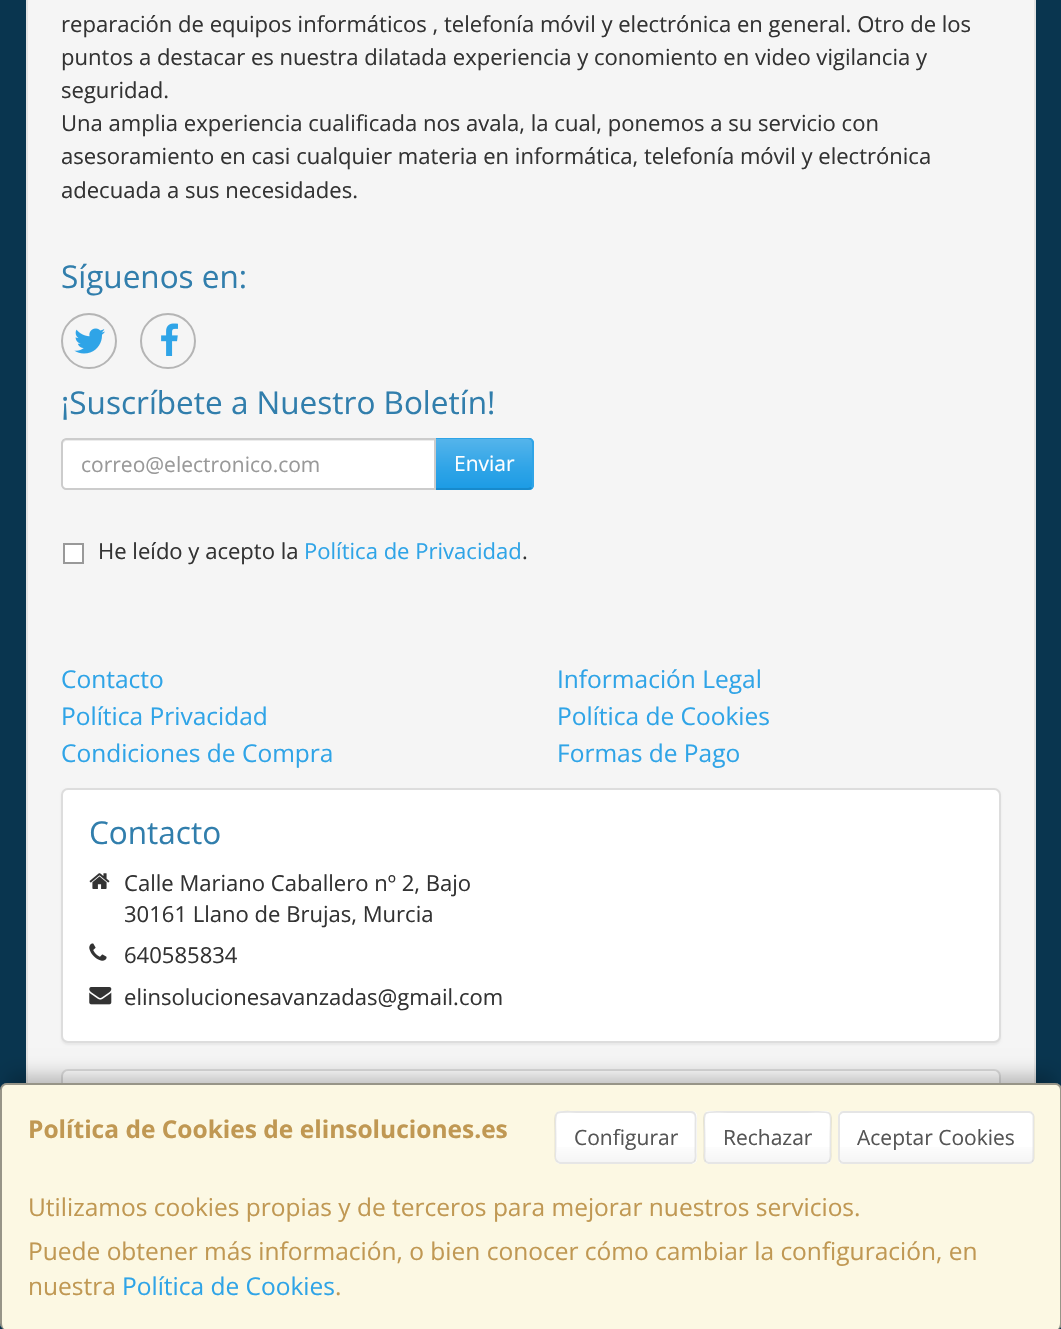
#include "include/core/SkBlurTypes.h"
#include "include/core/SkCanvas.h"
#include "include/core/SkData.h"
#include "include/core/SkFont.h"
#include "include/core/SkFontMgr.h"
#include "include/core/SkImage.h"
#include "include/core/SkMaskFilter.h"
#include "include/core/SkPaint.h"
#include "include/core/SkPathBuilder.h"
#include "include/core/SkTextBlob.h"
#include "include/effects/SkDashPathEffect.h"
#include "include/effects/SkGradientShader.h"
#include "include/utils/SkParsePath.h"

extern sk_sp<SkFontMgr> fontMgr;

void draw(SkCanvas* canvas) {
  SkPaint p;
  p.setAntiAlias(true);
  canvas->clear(SkColorSetRGB(9, 53, 79));
  p.setColor(SkColorSetRGB(245, 245, 245));
  canvas->drawRect(SkRect::MakeLTRB(28, 0, 1034, 1083), p);
  p.setStyle(SkPaint::kStroke_Style);
  p.setStrokeWidth(2);
  p.setColor(SkColorSetRGB(227, 227, 227));
  canvas->drawRect(SkRect::MakeLTRB(27, -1, 1035, 1245), p);
  p.setColor(SkColorSetRGB(181, 181, 181));
  canvas->drawCircle(89, 341, 27, p);
  canvas->drawImageRect(SkImages::DeferredFromEncodedData(SkData::MakeFromFileName("images/1.png")), SkRect::MakeLTRB(74, 328, 105, 354), SkSamplingOptions());
  canvas->drawCircle(168, 341, 27, p);
  canvas->drawImageRect(SkImages::DeferredFromEncodedData(SkData::MakeFromFileName("images/2.png")), SkRect::MakeLTRB(161, 323, 178, 356), SkSamplingOptions());
  p.setStyle(SkPaint::kFill_Style);
  p.setColor(SkColorSetRGB(47, 164, 231));
  canvas->drawPath(SkPathBuilder().moveTo(434, 438).lineTo(529, 438).cubicTo(532, 438, 534, 440, 534, 443).lineTo(534, 485).cubicTo(534, 488, 532, 490, 529, 490).lineTo(434, 490).close().detach(), p);
  {
    const SkColor colors[] = {SkColorSetRGB(84, 180, 235), SkColorSetRGB(47, 164, 231), SkColorSetRGB(29, 156, 229)};
    const float stops[] = {0, 0.6f, 1};
    const SkPoint ends[] = {{484, 439}, {484, 488}};
    p.setShader(SkGradientShader::MakeLinear(ends, colors, stops, 3, SkTileMode::kClamp));
    p.setAlpha(255);
  }
  canvas->drawRect(SkRect::MakeLTRB(436, 439, 532, 488), p);
  p.setShader(nullptr);
  p.setColor(SkColorSetRGB(47, 164, 231));
  canvas->drawPath(SkPathBuilder().moveTo(436, 439).lineTo(528, 439).lineTo(531, 440).lineTo(532, 439).cubicTo(531, 438, 529, 438, 528, 438).lineTo(434, 438).lineTo(436, 440).close().detach(), p);
  canvas->drawPath(SkPathBuilder().moveTo(532, 439).lineTo(534, 442).lineTo(534, 486).lineTo(532, 489).lineTo(531, 487).lineTo(532, 485).lineTo(532, 443).lineTo(531, 440).close().detach(), p);
  p.setColor(SkColorSetRGB(23, 138, 204));
  canvas->drawPath(SkPathBuilder().moveTo(528, 490).cubicTo(530, 490, 531, 489, 532, 489).lineTo(531, 487).lineTo(528, 488).lineTo(436, 488).lineTo(434, 490).close().detach(), p);
  p.setColor(SK_ColorWHITE);
  canvas->drawPath(SkPathBuilder().moveTo(66, 438).lineTo(436, 438).lineTo(436, 490).lineTo(66, 490).cubicTo(63, 490, 61, 488, 61, 485).lineTo(61, 443).cubicTo(61, 440, 63, 438, 66, 438).close().detach(), p);
  p.setColor(SkColorSetRGB(236, 236, 236));
  canvas->drawPath(SkPathBuilder().moveTo(66, 441).lineTo(434, 441).lineTo(434, 439).lineTo(67, 439).cubicTo(64, 439, 63, 441, 63, 444).cubicTo(63, 443, 65, 441, 66, 441).close().detach(), p);
  p.setStyle(SkPaint::kStroke_Style);
  p.setColor(SkColorSetRGB(204, 204, 204));
  canvas->drawPath(SkPathBuilder().moveTo(66, 439).lineTo(435, 439).lineTo(435, 489).lineTo(66, 489).cubicTo(64, 489, 62, 487, 62, 485).lineTo(62, 443).cubicTo(62, 441, 64, 439, 66, 439).close().detach(), p);
  p.setStyle(SkPaint::kFill_Style);
  p.setColor(SK_ColorWHITE);
  canvas->drawRect(SkRect::MakeLTRB(64, 544, 83, 563), p);
  p.setStyle(SkPaint::kStroke_Style);
  p.setColor(SkColorSetRGB(153, 153, 153));
  canvas->drawRect(SkRect::MakeLTRB(64, 544, 83, 563), p);
  p.setStyle(SkPaint::kFill_Style);
  p.setColor(SkColorSetARGB(13, 0, 0, 0));
  p.setMaskFilter(SkMaskFilter::MakeBlur(kNormal_SkBlurStyle, 1));
  canvas->drawRoundRect(SkRect::MakeLTRB(61, 789, 1001, 1045), 7, 7, p);
  p.setMaskFilter(nullptr);
  p.setColor(SK_ColorWHITE);
  canvas->drawRoundRect(SkRect::MakeLTRB(62, 789, 1000, 1042), 6, 6, p);
  p.setStyle(SkPaint::kStroke_Style);
  p.setColor(SkColorSetRGB(221, 221, 221));
  canvas->drawRoundRect(SkRect::MakeLTRB(62, 789, 1000, 1042), 6, 6, p);
  canvas->drawImageRect(SkImages::DeferredFromEncodedData(SkData::MakeFromFileName("images/3.png")), SkRect::MakeLTRB(89, 873, 110, 889), SkSamplingOptions());
  canvas->drawImageRect(SkImages::DeferredFromEncodedData(SkData::MakeFromFileName("images/4.png")), SkRect::MakeLTRB(89, 943, 107, 961), SkSamplingOptions());
  canvas->drawImageRect(SkImages::DeferredFromEncodedData(SkData::MakeFromFileName("images/5.png")), SkRect::MakeLTRB(89, 987, 112, 1005), SkSamplingOptions());
  p.setStyle(SkPaint::kFill_Style);
  p.setColor(SK_ColorWHITE);
  canvas->drawRoundRect(SkRect::MakeLTRB(62, 1070, 1000, 1210), 6, 6, p);
  p.setStyle(SkPaint::kStroke_Style);
  p.setColor(SkColorSetRGB(221, 221, 221));
  canvas->drawRoundRect(SkRect::MakeLTRB(62, 1070, 1000, 1210), 6, 6, p);
  p.setStyle(SkPaint::kFill_Style);
  p.setColor(SkColorSetARGB(64, 0, 0, 0));
  p.setMaskFilter(SkMaskFilter::MakeBlur(kNormal_SkBlurStyle, 9));
  canvas->drawRect(SkRect::MakeLTRB(9, 1075, 1054, 1304), p);
  p.setMaskFilter(nullptr);
  p.setColor(SkColorSetRGB(252, 248, 227));
  canvas->drawRoundRect(SkRect::MakeLTRB(0, 1083, 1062, 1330), 7, 7, p);
  p.setColor(SkColorSetARGB(102, 0, 0, 0));
  canvas->drawPath(SkPathBuilder(SkPathFillType::kEvenOdd).moveTo(7, 1083).lineTo(1055, 1083).cubicTo(1059, 1083, 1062, 1086, 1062, 1090).lineTo(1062, 1323).cubicTo(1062, 1327, 1059, 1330, 1055, 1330).lineTo(7, 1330).cubicTo(3, 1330, 0, 1327, 0, 1323).lineTo(0, 1090).cubicTo(0, 1086, 3, 1083, 7, 1083).close().moveTo(7, 1085).lineTo(1055, 1085).cubicTo(1058, 1085, 1060, 1087, 1060, 1090).lineTo(1060, 1323).cubicTo(1060, 1327, 1058, 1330, 1055, 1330).lineTo(7, 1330).cubicTo(4, 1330, 2, 1327, 2, 1323).lineTo(2, 1090).cubicTo(2, 1087, 4, 1085, 7, 1085).close().detach(), p);
  p.setColor(SK_ColorWHITE);
  canvas->drawRoundRect(SkRect::MakeLTRB(555, 1111, 697, 1164), 5, 5, p);
  {
    const SkColor colors[] = {SK_ColorWHITE, SK_ColorWHITE, SkColorSetRGB(245, 245, 245)};
    const float stops[] = {0, 0.6f, 1};
    const SkPoint ends[] = {{626, 1113}, {626, 1162}};
    p.setShader(SkGradientShader::MakeLinear(ends, colors, stops, 3, SkTileMode::kClamp));
    p.setAlpha(255);
  }
  canvas->drawRect(SkRect::MakeLTRB(557, 1147, 695, 1162), p);
  p.setStyle(SkPaint::kStroke_Style);
  p.setStrokeWidth(1.8f);
  p.setShader(nullptr);
  p.setColor(SkColorSetRGB(230, 230, 230));
  canvas->drawPath(SkPathBuilder().moveTo(694.5f, 1161.5f).lineTo(691.5f, 1163).lineTo(582, 1163).lineTo(560, 1163).lineTo(557, 1161.5f).detach(), p);
  p.setColor(SkColorSetARGB(26, 0, 0, 0));
  canvas->drawPath(SkPathBuilder().moveTo(557, 1161.5f).cubicTo(554.5f, 1159, 555.5f, 1154, 555.5f, 1151.5f).lineTo(555.5f, 1137.5f).cubicTo(555.5f, 1107, 550.5f, 1112, 582, 1112).lineTo(691, 1112).cubicTo(697, 1112, 695.5f, 1120, 695.5f, 1123.5f).lineTo(695.5f, 1151.5f).cubicTo(695.5f, 1154, 696.5f, 1159, 694.5f, 1161.5f).detach(), p);
  p.setStyle(SkPaint::kFill_Style);
  p.setColor(SK_ColorWHITE);
  canvas->drawRoundRect(SkRect::MakeLTRB(704, 1111, 831, 1164), 5, 5, p);
  {
    const SkColor colors[] = {SK_ColorWHITE, SK_ColorWHITE, SkColorSetRGB(245, 245, 245)};
    const float stops[] = {0, 0.6f, 1};
    const SkPoint ends[] = {{767, 1113}, {767, 1162}};
    p.setShader(SkGradientShader::MakeLinear(ends, colors, stops, 3, SkTileMode::kClamp));
    p.setAlpha(255);
  }
  canvas->drawRect(SkRect::MakeLTRB(705, 1147, 830, 1162), p);
  p.setStyle(SkPaint::kStroke_Style);
  p.setShader(nullptr);
  p.setColor(SkColorSetRGB(230, 230, 230));
  canvas->drawPath(SkPathBuilder().moveTo(829, 1161.5f).lineTo(826, 1163).lineTo(708.5f, 1163).lineTo(705.5f, 1161.5f).detach(), p);
  p.setColor(SkColorSetARGB(26, 0, 0, 0));
  canvas->drawPath(SkPathBuilder().moveTo(705.5f, 1161.5f).cubicTo(703.5f, 1159, 704.5f, 1154, 704.5f, 1151.5f).lineTo(704.5f, 1137.5f).cubicTo(704.5f, 1108, 699, 1112, 728.5f, 1112).lineTo(806.5f, 1112).cubicTo(836, 1112, 830.5f, 1108, 830.5f, 1137.5f).lineTo(830.5f, 1151.5f).cubicTo(830.5f, 1154, 831.5f, 1159, 829, 1161.5f).detach(), p);
  p.setStyle(SkPaint::kFill_Style);
  p.setColor(SK_ColorWHITE);
  canvas->drawRoundRect(SkRect::MakeLTRB(838, 1111, 1034, 1164), 5, 5, p);
  {
    const SkColor colors[] = {SK_ColorWHITE, SK_ColorWHITE, SkColorSetRGB(245, 245, 245)};
    const float stops[] = {0, 0.6f, 1};
    const SkPoint ends[] = {{936, 1113}, {936, 1162}};
    p.setShader(SkGradientShader::MakeLinear(ends, colors, stops, 3, SkTileMode::kClamp));
    p.setAlpha(255);
  }
  canvas->drawRect(SkRect::MakeLTRB(840, 1147, 1033, 1162), p);
  p.setStyle(SkPaint::kStroke_Style);
  p.setShader(nullptr);
  p.setColor(SkColorSetRGB(230, 230, 230));
  canvas->drawPath(SkPathBuilder().moveTo(1032, 1161.5f).cubicTo(1031.5f, 1162.5f, 1030, 1163, 1029, 1163).lineTo(843.5f, 1163).cubicTo(842.5f, 1163, 841, 1162.5f, 840.5f, 1161.5f).detach(), p);
  p.setColor(SkColorSetARGB(26, 0, 0, 0));
  canvas->drawPath(SkPathBuilder().moveTo(840.5f, 1161.5f).cubicTo(839.5f, 1161, 839, 1159.5f, 839, 1158.5f).lineTo(839, 1116.5f).cubicTo(839, 1115.5f, 839.5f, 1114, 840.5f, 1113.5f).cubicTo(841, 1112.5f, 842.5f, 1112, 843.5f, 1112).lineTo(1029, 1112).cubicTo(1030, 1112, 1031.5f, 1112.5f, 1032, 1113.5f).cubicTo(1033, 1114, 1033.5f, 1115.5f, 1033.5f, 1116.5f).lineTo(1033.5f, 1158.5f).cubicTo(1033.5f, 1159.5f, 1033, 1161, 1032, 1161.5f).detach(), p);
  SkFont font1(fontMgr->matchFamilyStyle("Open Sans", SkFontStyle::Normal()), 22.05f);
  font1.setSubpixel(true);
  p.setStyle(SkPaint::kFill_Style);
  p.setColor(SkColorSetRGB(51, 51, 51));
  canvas->drawString("reparación de equipos informáticos , telefonía móvil y electrónica en general. Otro de los", 61, 32, font1, p);
  canvas->drawString("puntos a destacar es nuestra dilatada experiencia y conomiento en video vigilancia y", 61, 65, font1, p);
  canvas->drawString("seguridad.", 61, 98, font1, p);
  canvas->drawString("Una amplia experiencia cualificada nos avala, la cual, ponemos a su servicio con", 61, 131, font1, p);
  canvas->drawString("asesoramiento en casi cualquier materia en informática, telefonía móvil y electrónica", 61, 164, font1, p);
  canvas->drawString("adecuada a sus necesidades.", 61, 198, font1, p);
  SkFont font2(fontMgr->matchFamilyStyle("Open Sans", SkFontStyle::Normal()), 31.5f);
  font2.setSubpixel(true);
  p.setColor(SkColorSetRGB(49, 126, 172));
  canvas->drawString("Síguenos en:", 61, 288, font2, p);
  canvas->drawString("¡Suscríbete a Nuestro Boletín!", 61, 414, font2, p);
  SkFont font3(fontMgr->matchFamilyStyle("Open Sans", SkFontStyle::Normal()), 21);
  font3.setSubpixel(true);
  p.setColor(SkColorSetRGB(153, 153, 153));
  canvas->drawString("correo@electronico.com", 81, 472, font3, p);
  p.setColor(SK_ColorWHITE);
  canvas->drawString("Enviar", 454, 471, font3, p);
  p.setColor(SkColorSetRGB(51, 51, 51));
  canvas->drawString("He leído y acepto la", 98, 559, font1, p);
  p.setColor(SkColorSetRGB(47, 164, 231));
  canvas->drawString("Política de Privacidad", 304, 559, font1, p);
  p.setColor(SkColorSetRGB(51, 51, 51));
  canvas->drawString(".", 522, 559, font1, p);
  SkFont font4(fontMgr->matchFamilyStyle("Open Sans", SkFontStyle::Normal()), 24.5f);
  font4.setSubpixel(true);
  p.setColor(SkColorSetRGB(47, 164, 231));
  canvas->drawString("Contacto", 61, 688, font4, p);
  canvas->drawString("Información Legal", 557, 688, font4, p);
  canvas->drawString("Política Privacidad", 61, 725, font4, p);
  canvas->drawString("Política de Cookies", 557, 725, font4, p);
  canvas->drawString("Condiciones de Compra", 61, 762, font4, p);
  canvas->drawString("Formas de Pago", 557, 762, font4, p);
  p.setColor(SkColorSetRGB(49, 126, 172));
  canvas->drawString("Contacto", 89, 844, font2, p);
  p.setColor(SkColorSetRGB(51, 51, 51));
  canvas->drawString("Calle Mariano Caballero nº 2, Bajo", 124, 891, font1, p);
  canvas->drawString("30161 Llano de Brujas, Murcia", 124, 922, font1, p);
  canvas->drawString("640585834", 124, 963, font1, p);
  canvas->drawString("elinsolucionesavanzadas@gmail.com", 124, 1005, font1, p);
  SkFont font5(fontMgr->matchFamilyStyle("Open Sans", SkFontStyle::Bold()), 24.5f);
  font5.setSubpixel(true);
  p.setColor(SkColorSetRGB(192, 152, 83));
  canvas->drawString("Política de Cookies de elinsoluciones.es", 28, 1138, font5, p);
  p.setColor(SkColorSetRGB(85, 85, 85));
  canvas->drawString("Configurar", 574, 1145, font3, p);
  canvas->drawString("Rechazar", 723, 1145, font3, p);
  canvas->drawString("Aceptar Cookies", 857, 1145, font3, p);
  p.setColor(SkColorSetRGB(192, 152, 83));
  canvas->drawString("Utilizamos cookies propias y de terceros para mejorar nuestros servicios.", 28, 1216, font4, p);
  canvas->drawString("Puede obtener más información, o bien conocer cómo cambiar la configuración, en", 28, 1260, font4, p);
  canvas->drawString("nuestra", 28, 1295, font4, p);
  p.setColor(SkColorSetRGB(47, 164, 231));
  canvas->drawString("Política de Cookies", 122, 1295, font4, p);
  p.setColor(SkColorSetRGB(192, 152, 83));
  canvas->drawString(".", 335, 1295, font4, p);
}
